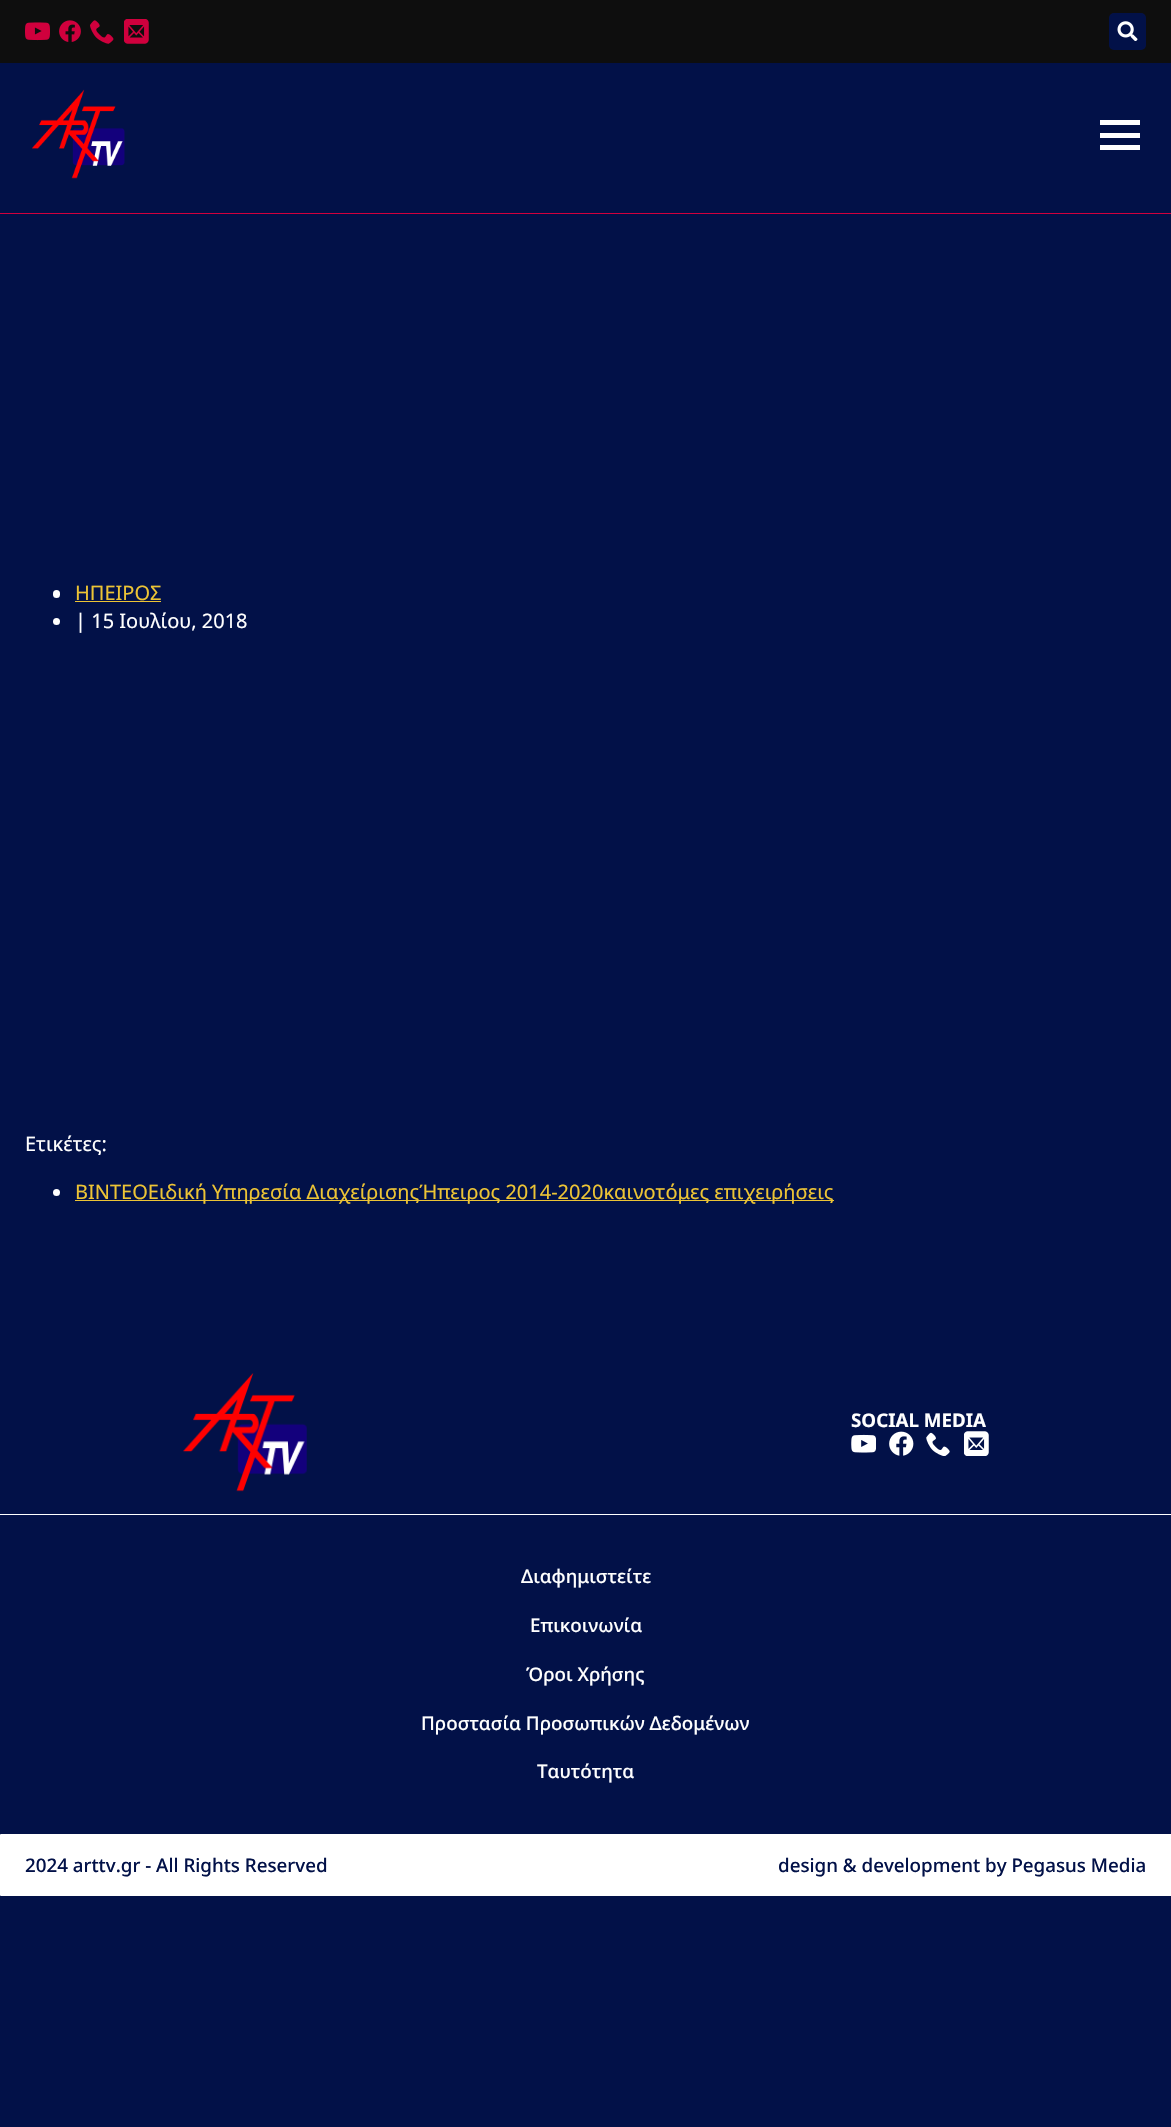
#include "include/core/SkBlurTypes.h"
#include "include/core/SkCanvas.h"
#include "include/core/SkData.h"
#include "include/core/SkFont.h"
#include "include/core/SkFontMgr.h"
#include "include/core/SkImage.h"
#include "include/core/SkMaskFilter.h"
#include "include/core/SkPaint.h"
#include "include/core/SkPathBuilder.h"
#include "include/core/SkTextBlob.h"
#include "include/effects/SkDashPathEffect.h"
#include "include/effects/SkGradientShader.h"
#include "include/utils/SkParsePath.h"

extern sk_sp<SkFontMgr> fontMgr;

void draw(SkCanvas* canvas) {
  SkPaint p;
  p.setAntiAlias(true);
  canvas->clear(SkColorSetRGB(2, 17, 72));
  p.setColor(SkColorSetRGB(14, 14, 14));
  canvas->drawRect(SkRect::MakeLTRB(0, 0, 1171, 63), p);
  canvas->drawImageRect(SkImages::DeferredFromEncodedData(SkData::MakeFromFileName("images/1.png")), SkRect::MakeLTRB(25, 22, 50, 41), SkSamplingOptions());
  canvas->drawImageRect(SkImages::DeferredFromEncodedData(SkData::MakeFromFileName("images/2.png")), SkRect::MakeLTRB(59, 20, 81, 42), SkSamplingOptions());
  canvas->drawImageRect(SkImages::DeferredFromEncodedData(SkData::MakeFromFileName("images/3.png")), SkRect::MakeLTRB(90, 20, 114, 44), SkSamplingOptions());
  canvas->drawImageRect(SkImages::DeferredFromEncodedData(SkData::MakeFromFileName("images/4.png")), SkRect::MakeLTRB(124, 19, 149, 44), SkSamplingOptions());
  p.setColor(SkColorSetRGB(2, 17, 72));
  canvas->drawRoundRect(SkRect::MakeLTRB(1109, 13, 1146, 50), 5, 5, p);
  canvas->drawImageRect(SkImages::DeferredFromEncodedData(SkData::MakeFromFileName("images/5.png")), SkRect::MakeLTRB(1117, 21, 1138, 41), SkSamplingOptions());
  p.setColor(SkColorSetRGB(208, 0, 61));
  canvas->drawRect(SkRect::MakeLTRB(0, 213, 1171, 214), p);
  canvas->drawImageRect(SkImages::DeferredFromEncodedData(SkData::MakeFromFileName("images/6.png")), SkRect::MakeLTRB(32, 89, 125, 179), SkSamplingOptions());
  p.setColor(SK_ColorWHITE);
  canvas->drawRect(SkRect::MakeLTRB(1100, 133, 1140, 138), p);
  canvas->drawRect(SkRect::MakeLTRB(1100, 120, 1140, 125), p);
  canvas->drawRect(SkRect::MakeLTRB(1100, 145, 1140, 150), p);
  canvas->drawRoundRect(SkRect::MakeLTRB(53, 590, 60, 598), 3.5f, 3.5f, p);
  p.setColor(SkColorSetRGB(237, 196, 53));
  canvas->drawRect(SkRect::MakeLTRB(75, 601, 161, 602), p);
  p.setColor(SK_ColorWHITE);
  canvas->drawCircle(56.5f, 621.5f, 3.5f, p);
  canvas->drawCircle(56.5f, 1192.5f, 3.5f, p);
  p.setColor(SkColorSetRGB(237, 196, 53));
  canvas->drawRect(SkRect::MakeLTRB(75, 1200, 834, 1201), p);
  p.setColor(SK_ColorWHITE);
  canvas->drawRect(SkRect::MakeLTRB(0, 1514, 1171, 1515), p);
  canvas->drawImageRect(SkImages::DeferredFromEncodedData(SkData::MakeFromFileName("images/7.png")), SkRect::MakeLTRB(183, 1373, 307, 1492), SkSamplingOptions());
  canvas->drawImageRect(SkImages::DeferredFromEncodedData(SkData::MakeFromFileName("images/8.png")), SkRect::MakeLTRB(851, 1434, 876, 1453), SkSamplingOptions());
  canvas->drawImageRect(SkImages::DeferredFromEncodedData(SkData::MakeFromFileName("images/9.png")), SkRect::MakeLTRB(889, 1431, 914, 1456), SkSamplingOptions());
  canvas->drawImageRect(SkImages::DeferredFromEncodedData(SkData::MakeFromFileName("images/10.png")), SkRect::MakeLTRB(926, 1432, 950, 1456), SkSamplingOptions());
  canvas->drawImageRect(SkImages::DeferredFromEncodedData(SkData::MakeFromFileName("images/11.png")), SkRect::MakeLTRB(964, 1431, 989, 1456), SkSamplingOptions());
  canvas->drawRoundRect(SkRect::MakeLTRB(0, 1834, 1171, 1896), 1, 1, p);
  canvas->drawRect(SkRect::MakeLTRB(1170, 1834, 1171, 1835), p);
  canvas->drawRect(SkRect::MakeLTRB(1170, 1895, 1171, 1896), p);
  SkFont font1(fontMgr->matchFamilyStyle("Noto Sans", SkFontStyle::Normal()), 20);
  font1.setSubpixel(true);
  p.setColor(SkColorSetRGB(237, 196, 53));
  canvas->drawString("ΗΠΕΙΡΟΣ", 75, 600, font1, p);
  p.setColor(SK_ColorWHITE);
  canvas->drawString("| 15 Ιουλίου, 2018", 75, 628, font1, p);
  canvas->drawString("Ετικέτες:", 25, 1151, font1, p);
  p.setColor(SkColorSetRGB(237, 196, 53));
  canvas->drawString("ΒΙΝΤΕΟΕιδική Υπηρεσία ΔιαχείρισηςΉπειρος 2014-2020καινοτόμες επιχειρήσεις", 75, 1199, font1, p);
  SkFont font2(fontMgr->matchFamilyStyle("Noto Sans", SkFontStyle::Bold()), 18.75f);
  font2.setSubpixel(true);
  p.setColor(SK_ColorWHITE);
  canvas->drawString("SOCIAL MEDIA", 851, 1427, font2, p);
  SkFont font3(fontMgr->matchFamilyStyle("Noto Sans", SkFontStyle(500, SkFontStyle::kNormal_Width, SkFontStyle::kUpright_Slant)), 18.75f);
  font3.setSubpixel(true);
  canvas->drawString("Διαφημιστείτε", 521, 1583, font3, p);
  canvas->drawString("Επικοινωνία", 530, 1632, font3, p);
  canvas->drawString("Όροι Χρήσης", 526, 1681, font3, p);
  canvas->drawString("Προστασία Προσωπικών Δεδομένων", 421, 1730, font3, p);
  canvas->drawString("Ταυτότητα", 537, 1778, font3, p);
  p.setColor(SkColorSetRGB(2, 17, 72));
  canvas->drawString("2024 arttv.gr - All Rights Reserved", 25, 1872, font3, p);
  canvas->drawString("design & development by Pegasus Media", 778, 1872, font3, p);
}
